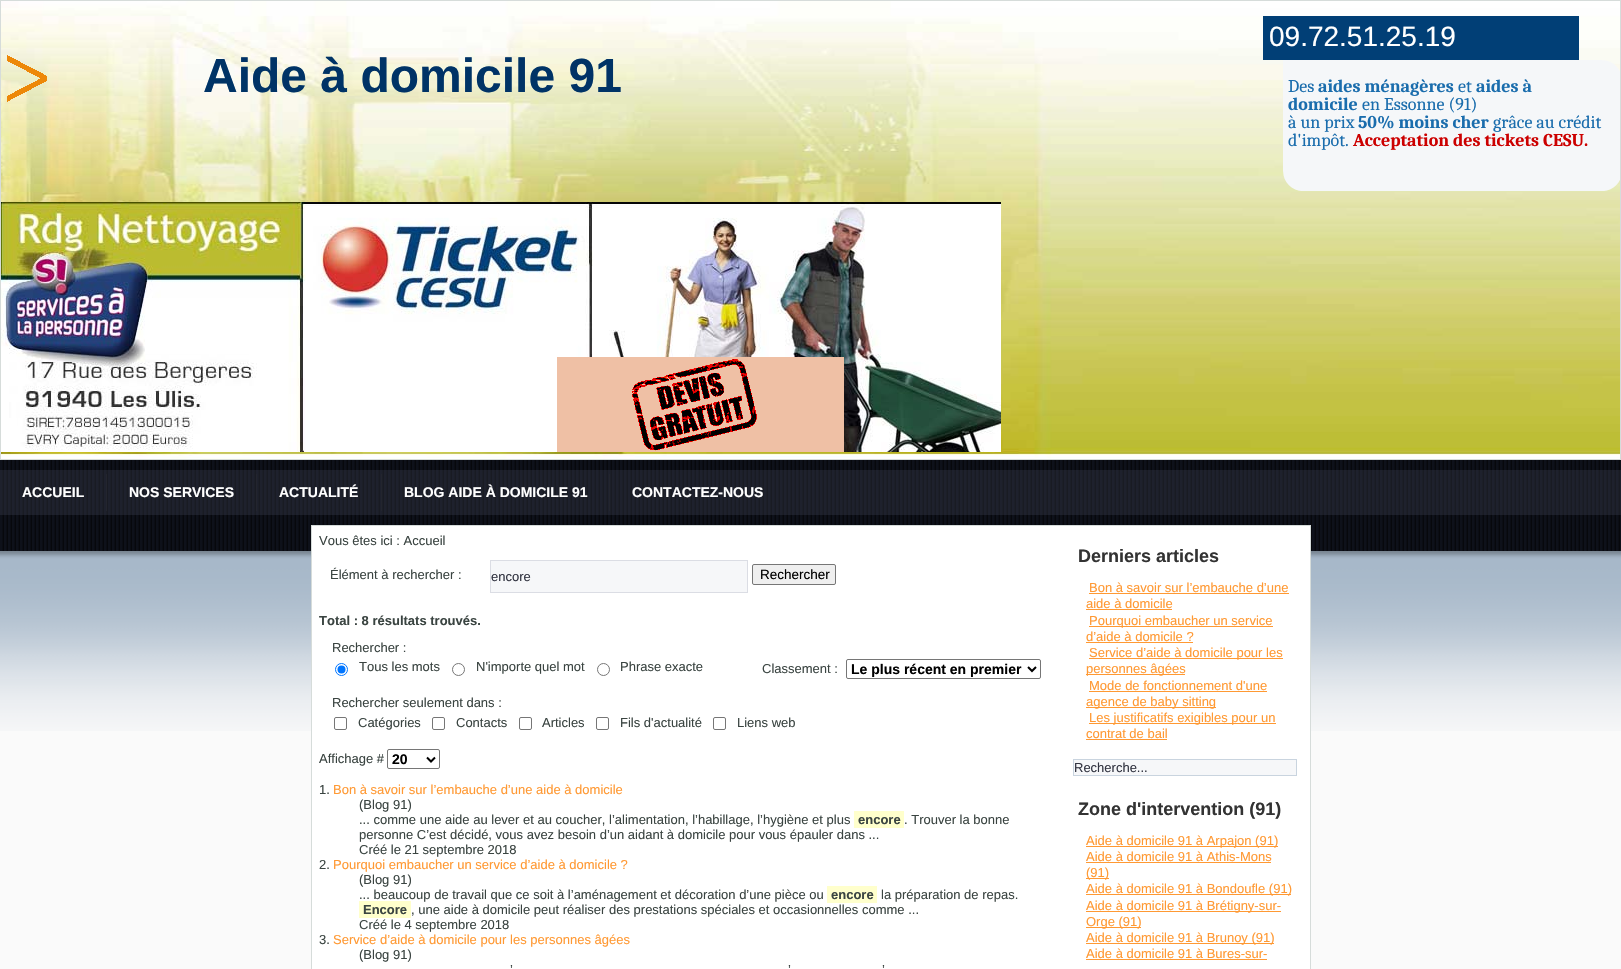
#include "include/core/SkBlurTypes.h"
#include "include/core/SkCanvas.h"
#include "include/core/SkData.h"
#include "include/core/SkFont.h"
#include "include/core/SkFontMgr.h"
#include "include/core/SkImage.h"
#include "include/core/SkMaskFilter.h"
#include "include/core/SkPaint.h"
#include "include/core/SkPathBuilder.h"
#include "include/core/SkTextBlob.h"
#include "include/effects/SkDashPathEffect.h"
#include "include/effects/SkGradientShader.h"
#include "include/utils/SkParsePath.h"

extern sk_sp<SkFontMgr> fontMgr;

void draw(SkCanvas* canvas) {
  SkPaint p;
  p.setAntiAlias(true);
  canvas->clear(SkColorSetRGB(250, 250, 250));
  canvas->drawImageRect(SkImages::DeferredFromEncodedData(SkData::MakeFromFileName("images/1.png")), SkRect::MakeLTRB(0, 460, 1621, 731), SkSamplingOptions());
  canvas->drawImageRect(SkImages::DeferredFromEncodedData(SkData::MakeFromFileName("images/2.png")), SkRect::MakeLTRB(1, 1, 1620, 459), SkSamplingOptions());
  p.setStyle(SkPaint::kStroke_Style);
  p.setStrokeWidth(1);
  p.setColor(SkColorSetRGB(214, 220, 218));
  canvas->drawRect(SkRect::MakeLTRB(0.5f, 0.5f, 1620.5f, 459.5f), p);
  p.setStyle(SkPaint::kFill_Style);
  p.setColor(SkColorSetRGB(1, 63, 118));
  canvas->drawRect(SkRect::MakeLTRB(1263, 16, 1579, 60), p);
  canvas->drawImageRect(SkImages::DeferredFromEncodedData(SkData::MakeFromFileName("images/3.png")), SkRect::MakeLTRB(7, 55, 47, 102), SkSamplingOptions());
  canvas->drawImageRect(SkImages::DeferredFromEncodedData(SkData::MakeFromFileName("images/4.png")), SkRect::MakeLTRB(1283, 60, 1620, 191), SkSamplingOptions());
  canvas->drawImageRect(SkImages::DeferredFromEncodedData(SkData::MakeFromFileName("images/5.png")), SkRect::MakeLTRB(1, 202, 1001, 452), SkSamplingOptions());
  canvas->drawImageRect(SkImages::DeferredFromEncodedData(SkData::MakeFromFileName("images/6.png")), SkRect::MakeLTRB(557, 357, 844, 452), SkSamplingOptions());
  p.setColor(SkColorSetARGB(77, 67, 70, 86));
  canvas->drawRect(SkRect::MakeLTRB(0, 470, 1621, 515), p);
  p.setColor(SkColorSetRGB(35, 37, 46));
  canvas->drawRect(SkRect::MakeLTRB(106, 474, 107, 511), p);
  canvas->drawRect(SkRect::MakeLTRB(256, 474, 257, 511), p);
  canvas->drawRect(SkRect::MakeLTRB(381, 474, 382, 511), p);
  canvas->drawRect(SkRect::MakeLTRB(609, 474, 610, 511), p);
  p.setColor(SK_ColorWHITE);
  canvas->drawRect(SkRect::MakeLTRB(311.5f, 525.5f, 1310.5f, 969.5f), p);
  p.setStyle(SkPaint::kStroke_Style);
  p.setColor(SkColorSetRGB(214, 220, 218));
  canvas->drawRect(SkRect::MakeLTRB(311.5f, 525.5f, 1310.5f, 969.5f), p);
  p.setStyle(SkPaint::kFill_Style);
  p.setColor(SkColorSetRGB(246, 247, 249));
  canvas->drawRect(SkRect::MakeLTRB(490.5f, 560.5f, 747.5f, 592.5f), p);
  p.setStyle(SkPaint::kStroke_Style);
  p.setColor(SkColorSetRGB(219, 221, 228));
  canvas->drawRect(SkRect::MakeLTRB(490.5f, 560.5f, 747.5f, 592.5f), p);
  p.setStyle(SkPaint::kFill_Style);
  p.setColor(SkColorSetRGB(239, 239, 239));
  canvas->drawRoundRect(SkRect::MakeLTRB(752.5f, 564.5f, 835.5f, 584.5f), 1.5f, 1.5f, p);
  p.setStyle(SkPaint::kStroke_Style);
  p.setColor(SkColorSetRGB(118, 118, 118));
  canvas->drawRoundRect(SkRect::MakeLTRB(752.5f, 564.5f, 835.5f, 584.5f), 1.5f, 1.5f, p);
  p.setColor(SkColorSetRGB(0, 117, 255));
  canvas->drawCircle(341.5f, 669.5f, 6, p);
  p.setStyle(SkPaint::kFill_Style);
  canvas->drawCircle(341.5f, 669.5f, 4, p);
  p.setStyle(SkPaint::kStroke_Style);
  p.setColor(SkColorSetRGB(118, 118, 118));
  canvas->drawCircle(458.5f, 669.5f, 6, p);
  canvas->drawCircle(603.5f, 669.5f, 6, p);
  canvas->drawRoundRect(SkRect::MakeLTRB(846.5f, 659.5f, 1040.5f, 678.5f), 1.5f, 1.5f, p);
  p.setStrokeWidth(2);
  p.setColor(SK_ColorBLACK);
  canvas->drawPath(SkPathBuilder().moveTo(1028, 667).lineTo(1032, 671).lineTo(1036, 667).detach(), p);
  p.setStrokeWidth(1);
  p.setColor(SkColorSetRGB(118, 118, 118));
  canvas->drawRoundRect(SkRect::MakeLTRB(334.5f, 717.5f, 346.5f, 729.5f), 1.5f, 1.5f, p);
  canvas->drawRoundRect(SkRect::MakeLTRB(432.5f, 717.5f, 444.5f, 729.5f), 1.5f, 1.5f, p);
  canvas->drawRoundRect(SkRect::MakeLTRB(519.5f, 717.5f, 531.5f, 729.5f), 1.5f, 1.5f, p);
  canvas->drawRoundRect(SkRect::MakeLTRB(596.5f, 717.5f, 608.5f, 729.5f), 1.5f, 1.5f, p);
  canvas->drawRoundRect(SkRect::MakeLTRB(713.5f, 717.5f, 725.5f, 729.5f), 1.5f, 1.5f, p);
  canvas->drawRoundRect(SkRect::MakeLTRB(387.5f, 749.5f, 439.5f, 768.5f), 1.5f, 1.5f, p);
  p.setStrokeWidth(2);
  p.setColor(SK_ColorBLACK);
  canvas->drawPath(SkPathBuilder().moveTo(427, 757.5f).lineTo(431, 761.5f).lineTo(435, 757.5f).detach(), p);
  p.setStyle(SkPaint::kFill_Style);
  p.setColor(SkColorSetRGB(255, 255, 204));
  canvas->drawRect(SkRect::MakeLTRB(854, 811, 904, 828), p);
  canvas->drawRect(SkRect::MakeLTRB(827, 886, 877, 903), p);
  p.setColor(SkColorSetRGB(255, 153, 51));
  canvas->drawRect(SkRect::MakeLTRB(1089, 593, 1289, 594), p);
  canvas->drawRect(SkRect::MakeLTRB(1086, 609, 1172, 610), p);
  canvas->drawRect(SkRect::MakeLTRB(1089, 626, 1273, 627), p);
  canvas->drawRect(SkRect::MakeLTRB(1086, 642, 1193, 643), p);
  canvas->drawRect(SkRect::MakeLTRB(1089, 658, 1283, 659), p);
  canvas->drawRect(SkRect::MakeLTRB(1086, 674, 1185, 675), p);
  canvas->drawRect(SkRect::MakeLTRB(1089, 691, 1267, 692), p);
  canvas->drawRect(SkRect::MakeLTRB(1086, 707, 1216, 708), p);
  canvas->drawRect(SkRect::MakeLTRB(1089, 723, 1276, 724), p);
  canvas->drawRect(SkRect::MakeLTRB(1086, 739, 1167, 740), p);
  p.setColor(SkColorSetRGB(246, 247, 249));
  canvas->drawRect(SkRect::MakeLTRB(1073.5f, 759.5f, 1296.5f, 775.5f), p);
  p.setStyle(SkPaint::kStroke_Style);
  p.setStrokeWidth(1);
  p.setColor(SkColorSetRGB(201, 212, 223));
  canvas->drawRect(SkRect::MakeLTRB(1073.5f, 759.5f, 1296.5f, 775.5f), p);
  p.setStyle(SkPaint::kFill_Style);
  p.setColor(SkColorSetRGB(255, 153, 51));
  canvas->drawRect(SkRect::MakeLTRB(1086, 846, 1278, 847), p);
  canvas->drawRect(SkRect::MakeLTRB(1086, 862, 1271, 863), p);
  canvas->drawRect(SkRect::MakeLTRB(1086, 878, 1109, 879), p);
  canvas->drawRect(SkRect::MakeLTRB(1086, 894, 1291, 895), p);
  canvas->drawRect(SkRect::MakeLTRB(1086, 911, 1281, 912), p);
  canvas->drawRect(SkRect::MakeLTRB(1086, 927, 1141, 928), p);
  canvas->drawRect(SkRect::MakeLTRB(1086, 943, 1274, 944), p);
  canvas->drawRect(SkRect::MakeLTRB(1086, 959, 1267, 960), p);
  SkFont font1(fontMgr->matchFamilyStyle("Liberation Sans", SkFontStyle::Normal()), 28);
  font1.setSubpixel(true);
  p.setColor(SK_ColorWHITE);
  canvas->drawString("09.72.51.25.19", 1269, 46, font1, p);
  SkFont font2(fontMgr->matchFamilyStyle("Liberation Sans", SkFontStyle::Bold()), 48);
  font2.setSubpixel(true);
  p.setColor(SkColorSetRGB(0, 51, 102));
  canvas->drawString("Aide à domicile 91", 203, 92, font2, p);
  SkFont font3(fontMgr->matchFamilyStyle("Caladea", SkFontStyle::Normal()), 18);
  font3.setSubpixel(true);
  p.setColor(SkColorSetRGB(26, 109, 173));
  canvas->drawString("Des", 1288, 92, font3, p);
  SkFont font4(fontMgr->matchFamilyStyle("Caladea", SkFontStyle::Bold()), 18);
  font4.setSubpixel(true);
  canvas->drawString("aides ménagères", 1318, 92, font4, p);
  canvas->drawString("et", 1458, 92, font3, p);
  canvas->drawString("aides à", 1476, 92, font4, p);
  canvas->drawString("domicile", 1288, 110, font4, p);
  canvas->drawString("en Essonne (91)", 1362, 110, font3, p);
  canvas->drawString("à un prix", 1288, 128, font3, p);
  canvas->drawString("50% moins cher", 1358, 128, font4, p);
  canvas->drawString("grâce au crédit", 1493, 128, font3, p);
  canvas->drawString("d'impôt.", 1288, 146, font3, p);
  p.setColor(SkColorSetRGB(204, 0, 0));
  canvas->drawString("Acceptation des tickets CESU.", 1353, 146, font4, p);
  SkFont font5(fontMgr->matchFamilyStyle("Liberation Sans", SkFontStyle::Bold()), 14);
  font5.setSubpixel(true);
  p.setColor(SK_ColorWHITE);
  canvas->drawString("ACCUEIL", 22, 497, font5, p);
  canvas->drawString("NOS SERVICES", 129, 497, font5, p);
  canvas->drawString("ACTUALITÉ", 279, 497, font5, p);
  canvas->drawString("BLOG AIDE À DOMICILE 91", 404, 497, font5, p);
  canvas->drawString("CONTACTEZ-NOUS", 632, 497, font5, p);
  SkFont font6(fontMgr->matchFamilyStyle("Liberation Sans", SkFontStyle::Normal()), 13);
  font6.setSubpixel(true);
  p.setColor(SkColorSetRGB(58, 68, 65));
  canvas->drawString("Vous êtes ici : Accueil", 319, 545, font6, p);
  canvas->drawString("Élément à rechercher :", 330, 579, font6, p);
  p.setColor(SkColorSetRGB(51, 53, 66));
  canvas->drawString("encore", 491, 581, font6, p);
  SkFont font7(fontMgr->matchFamilyStyle("Liberation Sans", SkFontStyle::Normal()), 13.5f);
  font7.setSubpixel(true);
  p.setColor(SK_ColorBLACK);
  canvas->drawString("Rechercher", 760, 579, font7, p);
  SkFont font8(fontMgr->matchFamilyStyle("Liberation Sans", SkFontStyle::Bold()), 13);
  font8.setSubpixel(true);
  p.setColor(SkColorSetRGB(58, 68, 65));
  canvas->drawString("Total : 8 résultats trouvés.", 319, 625, font8, p);
  canvas->drawString("Rechercher :", 332, 652, font6, p);
  canvas->drawString("Tous les mots", 359, 671, font6, p);
  canvas->drawString("N'importe quel mot", 476, 671, font6, p);
  canvas->drawString("Phrase exacte", 620, 671, font6, p);
  canvas->drawString("Classement :", 762, 673, font6, p);
  p.setColor(SK_ColorBLACK);
  canvas->drawString("Le plus récent en premier", 851, 674, font5, p);
  p.setColor(SkColorSetRGB(58, 68, 65));
  canvas->drawString("Rechercher seulement dans :", 332, 707, font6, p);
  canvas->drawString("Catégories", 358, 727, font6, p);
  canvas->drawString("Contacts", 456, 727, font6, p);
  canvas->drawString("Articles", 542, 727, font6, p);
  canvas->drawString("Fils d'actualité", 620, 727, font6, p);
  canvas->drawString("Liens web", 737, 727, font6, p);
  canvas->drawString("Affichage #", 319, 763, font6, p);
  p.setColor(SK_ColorBLACK);
  canvas->drawString("20", 392, 764, font5, p);
  p.setColor(SkColorSetRGB(58, 68, 65));
  canvas->drawString("1.", 319, 794, font6, p);
  p.setColor(SkColorSetRGB(255, 153, 51));
  canvas->drawString("Bon à savoir sur l’embauche d’une aide à domicile", 333, 794, font6, p);
  p.setColor(SkColorSetRGB(58, 68, 65));
  canvas->drawString("(Blog 91)", 359, 809, font6, p);
  canvas->drawString("... comme une aide au lever et au coucher, l’alimentation, l’habillage, l’hygiène et plus", 359, 824, font6, p);
  canvas->drawString("encore", 858, 824, font8, p);
  canvas->drawString(". Trouver la bonne", 904, 824, font6, p);
  canvas->drawString("personne C’est décidé, vous avez besoin d’un aidant à domicile pour vous épauler dans ...", 359, 839, font6, p);
  canvas->drawString("Créé le 21 septembre 2018", 359, 854, font6, p);
  canvas->drawString("2.", 319, 869, font6, p);
  p.setColor(SkColorSetRGB(255, 153, 51));
  canvas->drawString("Pourquoi embaucher un service d’aide à domicile ?", 333, 869, font6, p);
  p.setColor(SkColorSetRGB(58, 68, 65));
  canvas->drawString("(Blog 91)", 359, 884, font6, p);
  canvas->drawString("... beaucoup de travail que ce soit à l’aménagement et décoration d’une pièce ou", 359, 899, font6, p);
  canvas->drawString("encore", 831, 899, font8, p);
  canvas->drawString("la préparation de repas.", 881, 899, font6, p);
  p.setColor(SkColorSetRGB(255, 255, 204));
  canvas->drawRect(SkRect::MakeLTRB(359, 901, 411, 918), p);
  p.setColor(SkColorSetRGB(58, 68, 65));
  canvas->drawString("Encore", 363, 914, font8, p);
  canvas->drawString(", une aide à domicile peut réaliser des prestations spéciales et occasionnelles comme ...", 411, 914, font6, p);
  canvas->drawString("Créé le 4 septembre 2018", 359, 929, font6, p);
  canvas->drawString("3.", 319, 944, font6, p);
  p.setColor(SkColorSetRGB(255, 153, 51));
  canvas->drawString("Service d’aide à domicile pour les personnes âgées", 333, 944, font6, p);
  p.setColor(SkColorSetRGB(58, 68, 65));
  canvas->drawString("(Blog 91)", 359, 959, font6, p);
  canvas->drawString("’", 510, 974, font6, p);
  canvas->drawString("’", 788, 974, font6, p);
  canvas->drawString("’", 882, 974, font6, p);
  SkFont font9(fontMgr->matchFamilyStyle("Liberation Sans", SkFontStyle::Bold()), 18);
  font9.setSubpixel(true);
  p.setColor(SkColorSetRGB(51, 51, 51));
  canvas->drawString("Derniers articles", 1078, 562, font9, p);
  p.setColor(SkColorSetRGB(255, 153, 51));
  canvas->drawString("Bon à savoir sur l’embauche d’une", 1089, 592, font6, p);
  canvas->drawString("aide à domicile", 1086, 608, font6, p);
  canvas->drawString("Pourquoi embaucher un service", 1089, 625, font6, p);
  canvas->drawString("d’aide à domicile ?", 1086, 641, font6, p);
  canvas->drawString("Service d’aide à domicile pour les", 1089, 657, font6, p);
  canvas->drawString("personnes âgées", 1086, 673, font6, p);
  canvas->drawString("Mode de fonctionnement d'une", 1089, 690, font6, p);
  canvas->drawString("agence de baby sitting", 1086, 706, font6, p);
  canvas->drawString("Les justificatifs exigibles pour un", 1089, 722, font6, p);
  canvas->drawString("contrat de bail", 1086, 738, font6, p);
  p.setColor(SkColorSetRGB(51, 53, 66));
  canvas->drawString("Recherche...", 1074, 772, font6, p);
  p.setColor(SkColorSetRGB(51, 51, 51));
  canvas->drawString("Zone d'intervention (91)", 1078, 815, font9, p);
  p.setColor(SkColorSetRGB(255, 153, 51));
  canvas->drawString("Aide à domicile 91 à Arpajon (91)", 1086, 845, font6, p);
  canvas->drawString("Aide à domicile 91 à Athis-Mons", 1086, 861, font6, p);
  canvas->drawString("(91)", 1086, 877, font6, p);
  canvas->drawString("Aide à domicile 91 à Bondoufle (91)", 1086, 893, font6, p);
  canvas->drawString("Aide à domicile 91 à Brétigny-sur-", 1086, 910, font6, p);
  canvas->drawString("Orge (91)", 1086, 926, font6, p);
  canvas->drawString("Aide à domicile 91 à Brunoy (91)", 1086, 942, font6, p);
  canvas->drawString("Aide à domicile 91 à Bures-sur-", 1086, 958, font6, p);
}
